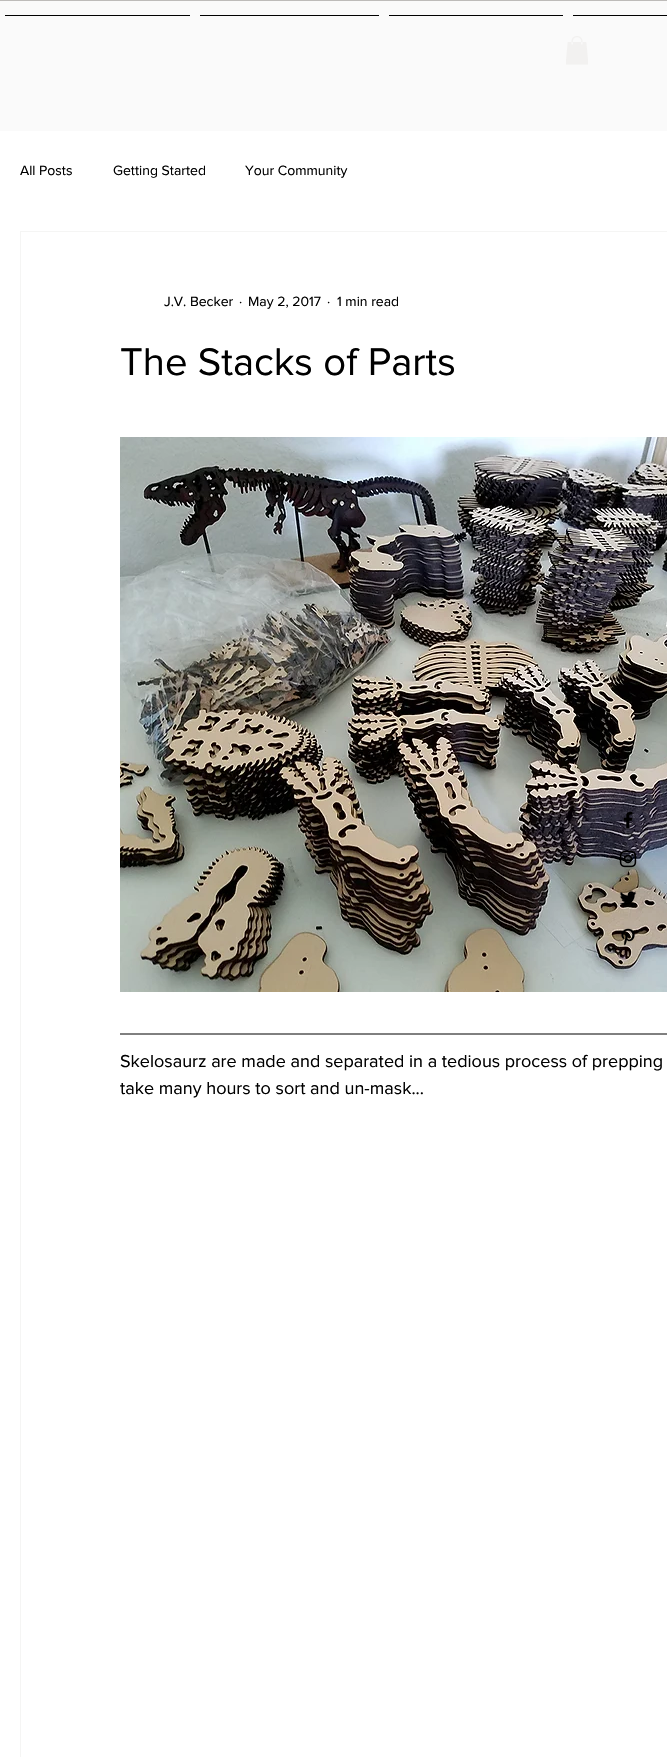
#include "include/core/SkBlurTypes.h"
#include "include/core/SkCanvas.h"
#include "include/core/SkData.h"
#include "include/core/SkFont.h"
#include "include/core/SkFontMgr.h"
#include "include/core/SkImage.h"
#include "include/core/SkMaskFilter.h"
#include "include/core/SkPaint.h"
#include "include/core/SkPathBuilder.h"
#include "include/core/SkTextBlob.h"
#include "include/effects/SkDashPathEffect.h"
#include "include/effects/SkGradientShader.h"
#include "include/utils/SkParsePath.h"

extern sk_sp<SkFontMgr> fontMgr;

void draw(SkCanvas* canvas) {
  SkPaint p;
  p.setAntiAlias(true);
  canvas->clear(SkColorSetRGB(250, 250, 250));
  p.setColor(SkColorSetRGB(189, 187, 185));
  canvas->drawRect(SkRect::MakeLTRB(0, 0, 667, 1), p);
  p.setColor(SK_ColorBLACK);
  canvas->drawRect(SkRect::MakeLTRB(5, 15, 190, 16), p);
  canvas->drawRect(SkRect::MakeLTRB(200, 15, 379, 16), p);
  canvas->drawRect(SkRect::MakeLTRB(389, 15, 563, 16), p);
  canvas->drawRect(SkRect::MakeLTRB(573, 15, 667, 16), p);
  canvas->drawImageRect(SkImages::DeferredFromEncodedData(SkData::MakeFromFileName("images/1.png")), SkRect::MakeLTRB(566, 36, 588, 65), SkSamplingOptions());
  p.setColor(SK_ColorWHITE);
  canvas->drawRect(SkRect::MakeLTRB(0, 131, 667, 1757), p);
  p.setStyle(SkPaint::kStroke_Style);
  p.setStrokeWidth(1);
  p.setColor(SkColorSetRGB(245, 245, 244));
  canvas->drawRect(SkRect::MakeLTRB(20.5f, 231.5f, 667.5f, 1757.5f), p);
  canvas->drawImageRect(SkImages::DeferredFromEncodedData(SkData::MakeFromFileName("images/2.png")), SkRect::MakeLTRB(120, 437, 667, 992), SkSamplingOptions());
  p.setColor(SK_ColorBLACK);
  canvas->drawPath(SkPathBuilder().moveTo(120, 1034).lineTo(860, 1034).detach(), p);
  canvas->drawImageRect(SkImages::DeferredFromEncodedData(SkData::MakeFromFileName("images/3.png")), SkRect::MakeLTRB(623, 811, 633, 829), SkSamplingOptions());
  canvas->drawImageRect(SkImages::DeferredFromEncodedData(SkData::MakeFromFileName("images/4.png")), SkRect::MakeLTRB(619, 850, 637, 868), SkSamplingOptions());
  canvas->drawImageRect(SkImages::DeferredFromEncodedData(SkData::MakeFromFileName("images/5.png")), SkRect::MakeLTRB(620, 891, 637, 905), SkSamplingOptions());
  canvas->drawImageRect(SkImages::DeferredFromEncodedData(SkData::MakeFromFileName("images/6.png")), SkRect::MakeLTRB(621, 928, 635, 946), SkSamplingOptions());
  SkFont font1(fontMgr->matchFamilyStyle("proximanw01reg", SkFontStyle::Normal()), 14);
  font1.setSubpixel(true);
  p.setStyle(SkPaint::kFill_Style);
  canvas->drawString("All Posts", 20, 175, font1, p);
  canvas->drawString("Getting Started", 113, 175, font1, p);
  canvas->drawString("Your Community", 245, 175, font1, p);
  canvas->drawString("J.V. Becker", 164, 306, font1, p);
  canvas->drawString("·", 239, 306, font1, p);
  canvas->drawString("May 2, 2017", 248, 306, font1, p);
  canvas->drawString("·", 327, 306, font1, p);
  canvas->drawString("1 min read", 337, 306, font1, p);
  SkFont font2(fontMgr->matchFamilyStyle("proximanw01reg", SkFontStyle::Normal()), 40);
  font2.setSubpixel(true);
  canvas->drawString("The Stacks of Parts", 120, 375, font2, p);
  SkFont font3(fontMgr->matchFamilyStyle("proximanw01reg", SkFontStyle::Normal()), 18);
  font3.setSubpixel(true);
  canvas->drawString("Skelosaurz are made and separated in a tedious process of prepping", 120, 1067, font3, p);
  canvas->drawString("take many hours to sort and un-mask...", 120, 1094, font3, p);
}
